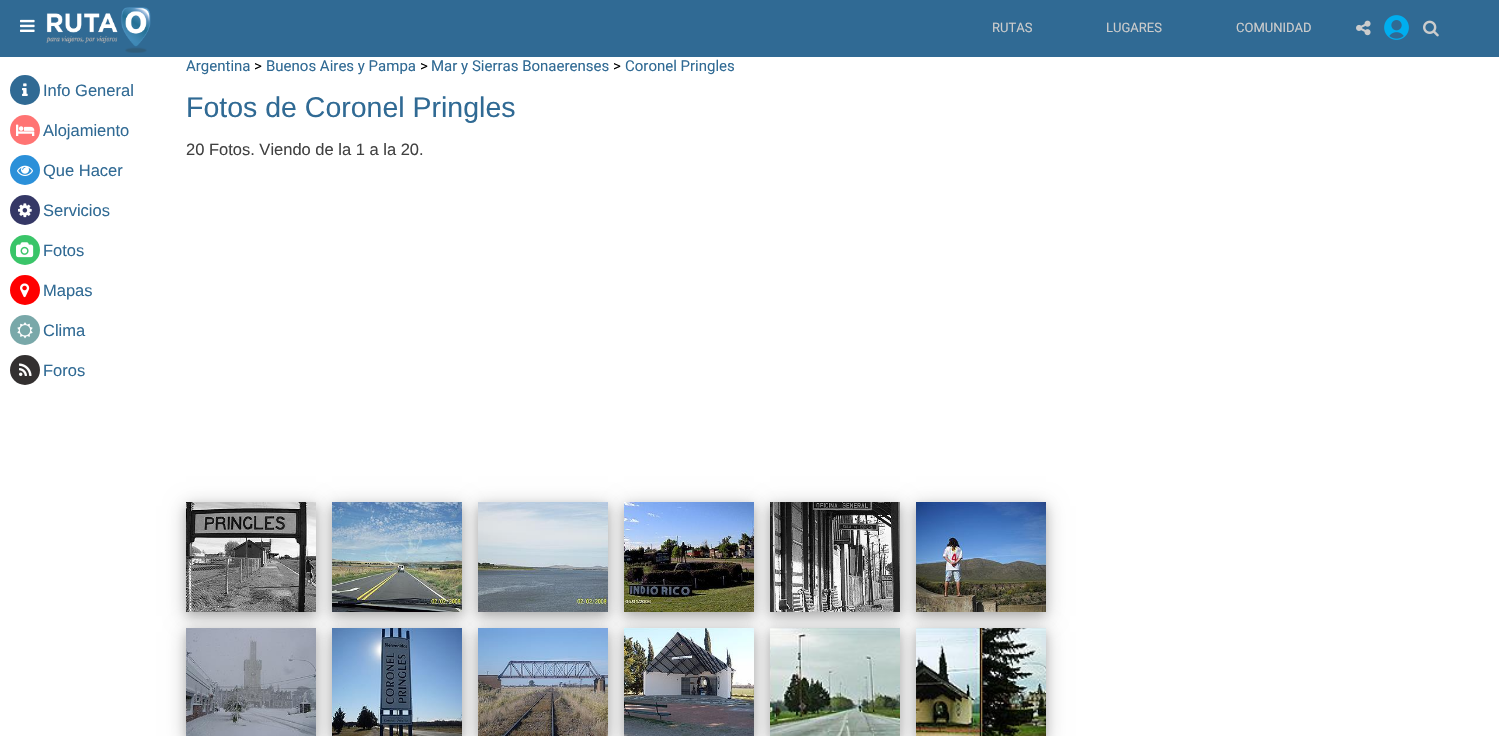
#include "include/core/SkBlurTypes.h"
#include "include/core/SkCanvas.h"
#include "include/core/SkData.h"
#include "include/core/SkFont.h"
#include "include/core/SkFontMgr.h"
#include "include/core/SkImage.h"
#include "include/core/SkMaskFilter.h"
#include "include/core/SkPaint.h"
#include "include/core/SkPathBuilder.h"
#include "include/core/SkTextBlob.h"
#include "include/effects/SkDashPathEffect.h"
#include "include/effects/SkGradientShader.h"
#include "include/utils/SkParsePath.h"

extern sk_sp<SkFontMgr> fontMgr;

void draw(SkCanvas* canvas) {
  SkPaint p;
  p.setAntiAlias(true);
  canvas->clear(SK_ColorWHITE);
  p.setColor(SkColorSetRGB(48, 106, 148));
  canvas->drawRect(SkRect::MakeLTRB(0, 0, 1499, 57), p);
  canvas->drawImageRect(SkImages::DeferredFromEncodedData(SkData::MakeFromFileName("images/1.png")), SkRect::MakeLTRB(20, 19, 35, 32), SkSamplingOptions());
  canvas->drawImageRect(SkImages::DeferredFromEncodedData(SkData::MakeFromFileName("images/2.png")), SkRect::MakeLTRB(46, 7, 151, 53), SkSamplingOptions());
  canvas->drawImageRect(SkImages::DeferredFromEncodedData(SkData::MakeFromFileName("images/3.png")), SkRect::MakeLTRB(1356, 20, 1371, 36), SkSamplingOptions());
  canvas->drawImageRect(SkImages::DeferredFromEncodedData(SkData::MakeFromFileName("images/4.png")), SkRect::MakeLTRB(1384, 15, 1409, 40), SkSamplingOptions());
  canvas->drawImageRect(SkImages::DeferredFromEncodedData(SkData::MakeFromFileName("images/5.png")), SkRect::MakeLTRB(1423, 20, 1439, 37), SkSamplingOptions());
  canvas->drawCircle(25, 90, 15, p);
  canvas->drawImageRect(SkImages::DeferredFromEncodedData(SkData::MakeFromFileName("images/6.png")), SkRect::MakeLTRB(22, 83, 28, 96), SkSamplingOptions());
  p.setColor(SkColorSetRGB(255, 116, 115));
  canvas->drawCircle(25, 130, 15, p);
  canvas->drawImageRect(SkImages::DeferredFromEncodedData(SkData::MakeFromFileName("images/7.png")), SkRect::MakeLTRB(16, 124, 35, 136), SkSamplingOptions());
  p.setColor(SkColorSetRGB(43, 144, 217));
  canvas->drawCircle(25, 170, 15, p);
  canvas->drawImageRect(SkImages::DeferredFromEncodedData(SkData::MakeFromFileName("images/8.png")), SkRect::MakeLTRB(17, 165, 33, 176), SkSamplingOptions());
  p.setColor(SkColorSetRGB(53, 56, 102));
  canvas->drawCircle(25, 210, 15, p);
  canvas->drawImageRect(SkImages::DeferredFromEncodedData(SkData::MakeFromFileName("images/9.png")), SkRect::MakeLTRB(18, 203, 32, 218), SkSamplingOptions());
  p.setColor(SkColorSetRGB(58, 197, 105));
  canvas->drawCircle(25, 250, 15, p);
  canvas->drawImageRect(SkImages::DeferredFromEncodedData(SkData::MakeFromFileName("images/10.png")), SkRect::MakeLTRB(16, 242, 34, 258), SkSamplingOptions());
  p.setColor(SkColorSetRGB(255, 0, 0));
  canvas->drawCircle(25, 290, 15, p);
  canvas->drawImageRect(SkImages::DeferredFromEncodedData(SkData::MakeFromFileName("images/11.png")), SkRect::MakeLTRB(20, 283, 30, 298), SkSamplingOptions());
  p.setColor(SkColorSetRGB(121, 168, 169));
  canvas->drawCircle(25, 330, 15, p);
  canvas->drawImageRect(SkImages::DeferredFromEncodedData(SkData::MakeFromFileName("images/12.png")), SkRect::MakeLTRB(17, 322, 33, 339), SkSamplingOptions());
  p.setColor(SkColorSetRGB(51, 48, 48));
  canvas->drawCircle(25, 370, 15, p);
  canvas->drawImageRect(SkImages::DeferredFromEncodedData(SkData::MakeFromFileName("images/13.png")), SkRect::MakeLTRB(19, 363, 32, 376), SkSamplingOptions());
  p.setColor(SkColorSetARGB(48, 0, 0, 0));
  p.setMaskFilter(SkMaskFilter::MakeBlur(kNormal_SkBlurStyle, 10));
  canvas->drawRect(SkRect::MakeLTRB(186, 506, 316, 616), p);
  p.setMaskFilter(nullptr);
  p.setColor(SkColorSetARGB(51, 0, 0, 0));
  p.setMaskFilter(SkMaskFilter::MakeBlur(kNormal_SkBlurStyle, 5));
  canvas->drawRect(SkRect::MakeLTRB(186, 506, 316, 616), p);
  p.setMaskFilter(nullptr);
  p.setColor(SkColorSetARGB(48, 0, 0, 0));
  p.setMaskFilter(SkMaskFilter::MakeBlur(kNormal_SkBlurStyle, 10));
  canvas->drawRect(SkRect::MakeLTRB(332, 506, 462, 616), p);
  p.setMaskFilter(nullptr);
  p.setMaskFilter(SkMaskFilter::MakeBlur(kNormal_SkBlurStyle, 10));
  canvas->drawRect(SkRect::MakeLTRB(186, 632, 316, 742), p);
  p.setMaskFilter(nullptr);
  p.setMaskFilter(SkMaskFilter::MakeBlur(kNormal_SkBlurStyle, 10));
  canvas->drawRect(SkRect::MakeLTRB(332, 632, 462, 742), p);
  p.setMaskFilter(nullptr);
  canvas->drawImageRect(SkImages::DeferredFromEncodedData(SkData::MakeFromFileName("images/14.png")), SkRect::MakeLTRB(186, 502, 316, 612), SkSamplingOptions());
  p.setColor(SkColorSetARGB(51, 0, 0, 0));
  p.setMaskFilter(SkMaskFilter::MakeBlur(kNormal_SkBlurStyle, 5));
  canvas->drawRect(SkRect::MakeLTRB(332, 506, 462, 616), p);
  p.setMaskFilter(nullptr);
  p.setColor(SkColorSetARGB(48, 0, 0, 0));
  p.setMaskFilter(SkMaskFilter::MakeBlur(kNormal_SkBlurStyle, 10));
  canvas->drawRect(SkRect::MakeLTRB(478, 506, 608, 616), p);
  p.setMaskFilter(nullptr);
  p.setMaskFilter(SkMaskFilter::MakeBlur(kNormal_SkBlurStyle, 10));
  canvas->drawRect(SkRect::MakeLTRB(478, 632, 608, 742), p);
  p.setMaskFilter(nullptr);
  canvas->drawImageRect(SkImages::DeferredFromEncodedData(SkData::MakeFromFileName("images/15.png")), SkRect::MakeLTRB(332, 502, 462, 612), SkSamplingOptions());
  p.setColor(SkColorSetARGB(51, 0, 0, 0));
  p.setMaskFilter(SkMaskFilter::MakeBlur(kNormal_SkBlurStyle, 5));
  canvas->drawRect(SkRect::MakeLTRB(478, 506, 608, 616), p);
  p.setMaskFilter(nullptr);
  p.setColor(SkColorSetARGB(48, 0, 0, 0));
  p.setMaskFilter(SkMaskFilter::MakeBlur(kNormal_SkBlurStyle, 10));
  canvas->drawRect(SkRect::MakeLTRB(624, 506, 754, 616), p);
  p.setMaskFilter(nullptr);
  p.setMaskFilter(SkMaskFilter::MakeBlur(kNormal_SkBlurStyle, 10));
  canvas->drawRect(SkRect::MakeLTRB(624, 632, 754, 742), p);
  p.setMaskFilter(nullptr);
  canvas->drawImageRect(SkImages::DeferredFromEncodedData(SkData::MakeFromFileName("images/16.png")), SkRect::MakeLTRB(478, 502, 608, 612), SkSamplingOptions());
  p.setColor(SkColorSetARGB(51, 0, 0, 0));
  p.setMaskFilter(SkMaskFilter::MakeBlur(kNormal_SkBlurStyle, 5));
  canvas->drawRect(SkRect::MakeLTRB(624, 506, 754, 616), p);
  p.setMaskFilter(nullptr);
  p.setColor(SkColorSetARGB(48, 0, 0, 0));
  p.setMaskFilter(SkMaskFilter::MakeBlur(kNormal_SkBlurStyle, 10));
  canvas->drawRect(SkRect::MakeLTRB(770, 506, 900, 616), p);
  p.setMaskFilter(nullptr);
  p.setMaskFilter(SkMaskFilter::MakeBlur(kNormal_SkBlurStyle, 10));
  canvas->drawRect(SkRect::MakeLTRB(770, 632, 900, 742), p);
  p.setMaskFilter(nullptr);
  canvas->drawImageRect(SkImages::DeferredFromEncodedData(SkData::MakeFromFileName("images/17.png")), SkRect::MakeLTRB(624, 502, 754, 612), SkSamplingOptions());
  p.setColor(SkColorSetARGB(51, 0, 0, 0));
  p.setMaskFilter(SkMaskFilter::MakeBlur(kNormal_SkBlurStyle, 5));
  canvas->drawRect(SkRect::MakeLTRB(770, 506, 900, 616), p);
  p.setMaskFilter(nullptr);
  p.setColor(SkColorSetARGB(48, 0, 0, 0));
  p.setMaskFilter(SkMaskFilter::MakeBlur(kNormal_SkBlurStyle, 10));
  canvas->drawRect(SkRect::MakeLTRB(916, 506, 1046, 616), p);
  p.setMaskFilter(nullptr);
  p.setMaskFilter(SkMaskFilter::MakeBlur(kNormal_SkBlurStyle, 10));
  canvas->drawRect(SkRect::MakeLTRB(916, 632, 1046, 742), p);
  p.setMaskFilter(nullptr);
  canvas->drawImageRect(SkImages::DeferredFromEncodedData(SkData::MakeFromFileName("images/18.png")), SkRect::MakeLTRB(770, 502, 900, 612), SkSamplingOptions());
  p.setColor(SkColorSetARGB(51, 0, 0, 0));
  p.setMaskFilter(SkMaskFilter::MakeBlur(kNormal_SkBlurStyle, 5));
  canvas->drawRect(SkRect::MakeLTRB(916, 506, 1046, 616), p);
  p.setMaskFilter(nullptr);
  canvas->drawImageRect(SkImages::DeferredFromEncodedData(SkData::MakeFromFileName("images/19.png")), SkRect::MakeLTRB(916, 502, 1046, 612), SkSamplingOptions());
  p.setMaskFilter(SkMaskFilter::MakeBlur(kNormal_SkBlurStyle, 5));
  canvas->drawRect(SkRect::MakeLTRB(186, 632, 316, 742), p);
  p.setMaskFilter(nullptr);
  canvas->drawImageRect(SkImages::DeferredFromEncodedData(SkData::MakeFromFileName("images/20.png")), SkRect::MakeLTRB(186, 628, 316, 736), SkSamplingOptions());
  p.setMaskFilter(SkMaskFilter::MakeBlur(kNormal_SkBlurStyle, 5));
  canvas->drawRect(SkRect::MakeLTRB(332, 632, 462, 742), p);
  p.setMaskFilter(nullptr);
  canvas->drawImageRect(SkImages::DeferredFromEncodedData(SkData::MakeFromFileName("images/21.png")), SkRect::MakeLTRB(332, 628, 462, 736), SkSamplingOptions());
  p.setMaskFilter(SkMaskFilter::MakeBlur(kNormal_SkBlurStyle, 5));
  canvas->drawRect(SkRect::MakeLTRB(478, 632, 608, 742), p);
  p.setMaskFilter(nullptr);
  canvas->drawImageRect(SkImages::DeferredFromEncodedData(SkData::MakeFromFileName("images/22.png")), SkRect::MakeLTRB(478, 628, 608, 736), SkSamplingOptions());
  p.setMaskFilter(SkMaskFilter::MakeBlur(kNormal_SkBlurStyle, 5));
  canvas->drawRect(SkRect::MakeLTRB(624, 632, 754, 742), p);
  p.setMaskFilter(nullptr);
  canvas->drawImageRect(SkImages::DeferredFromEncodedData(SkData::MakeFromFileName("images/23.png")), SkRect::MakeLTRB(624, 628, 754, 736), SkSamplingOptions());
  p.setMaskFilter(SkMaskFilter::MakeBlur(kNormal_SkBlurStyle, 5));
  canvas->drawRect(SkRect::MakeLTRB(770, 632, 900, 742), p);
  p.setMaskFilter(nullptr);
  canvas->drawImageRect(SkImages::DeferredFromEncodedData(SkData::MakeFromFileName("images/24.png")), SkRect::MakeLTRB(770, 628, 900, 736), SkSamplingOptions());
  p.setMaskFilter(SkMaskFilter::MakeBlur(kNormal_SkBlurStyle, 5));
  canvas->drawRect(SkRect::MakeLTRB(916, 632, 1046, 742), p);
  p.setMaskFilter(nullptr);
  canvas->drawImageRect(SkImages::DeferredFromEncodedData(SkData::MakeFromFileName("images/25.png")), SkRect::MakeLTRB(916, 628, 1046, 736), SkSamplingOptions());
  SkFont font1(fontMgr->matchFamilyStyle("Roboto", SkFontStyle::Normal()), 13);
  font1.setSubpixel(true);
  p.setColor(SkColorSetRGB(204, 204, 204));
  canvas->drawString("RUTAS", 992, 32, font1, p);
  canvas->drawString("LUGARES", 1106, 32, font1, p);
  canvas->drawString("COMUNIDAD", 1236, 32, font1, p);
  SkFont font2(fontMgr->matchFamilyStyle("Roboto", SkFontStyle::Normal()), 15);
  font2.setSubpixel(true);
  p.setColor(SkColorSetRGB(48, 106, 148));
  canvas->drawString("Argentina", 186, 71, font2, p);
  p.setColor(SK_ColorBLACK);
  canvas->drawString(">", 254, 71, font2, p);
  p.setColor(SkColorSetRGB(48, 106, 148));
  canvas->drawString("Buenos Aires y Pampa", 266, 71, font2, p);
  p.setColor(SK_ColorBLACK);
  canvas->drawString(">", 420, 71, font2, p);
  p.setColor(SkColorSetRGB(48, 106, 148));
  canvas->drawString("Mar y Sierras Bonaerenses", 431, 71, font2, p);
  p.setColor(SK_ColorBLACK);
  canvas->drawString(">", 613, 71, font2, p);
  p.setColor(SkColorSetRGB(48, 106, 148));
  canvas->drawString("Coronel Pringles", 625, 71, font2, p);
  SkFont font3(fontMgr->matchFamilyStyle("Liberation Sans", SkFontStyle::Normal()), 16.5f);
  font3.setSubpixel(true);
  canvas->drawString("Info General", 43, 96, font3, p);
  canvas->drawString("Alojamiento", 43, 136, font3, p);
  canvas->drawString("Que Hacer", 43, 176, font3, p);
  canvas->drawString("Servicios", 43, 216, font3, p);
  canvas->drawString("Fotos", 43, 256, font3, p);
  canvas->drawString("Mapas", 43, 296, font3, p);
  canvas->drawString("Clima", 43, 336, font3, p);
  canvas->drawString("Foros", 43, 376, font3, p);
  SkFont font4(fontMgr->matchFamilyStyle("Liberation Sans", SkFontStyle::Normal()), 28.5f);
  font4.setSubpixel(true);
  canvas->drawString("Fotos de Coronel Pringles", 186, 117, font4, p);
  p.setColor(SkColorSetRGB(65, 65, 65));
  canvas->drawString("20 Fotos. Viendo de la 1 a la 20.", 186, 155, font3, p);
}
